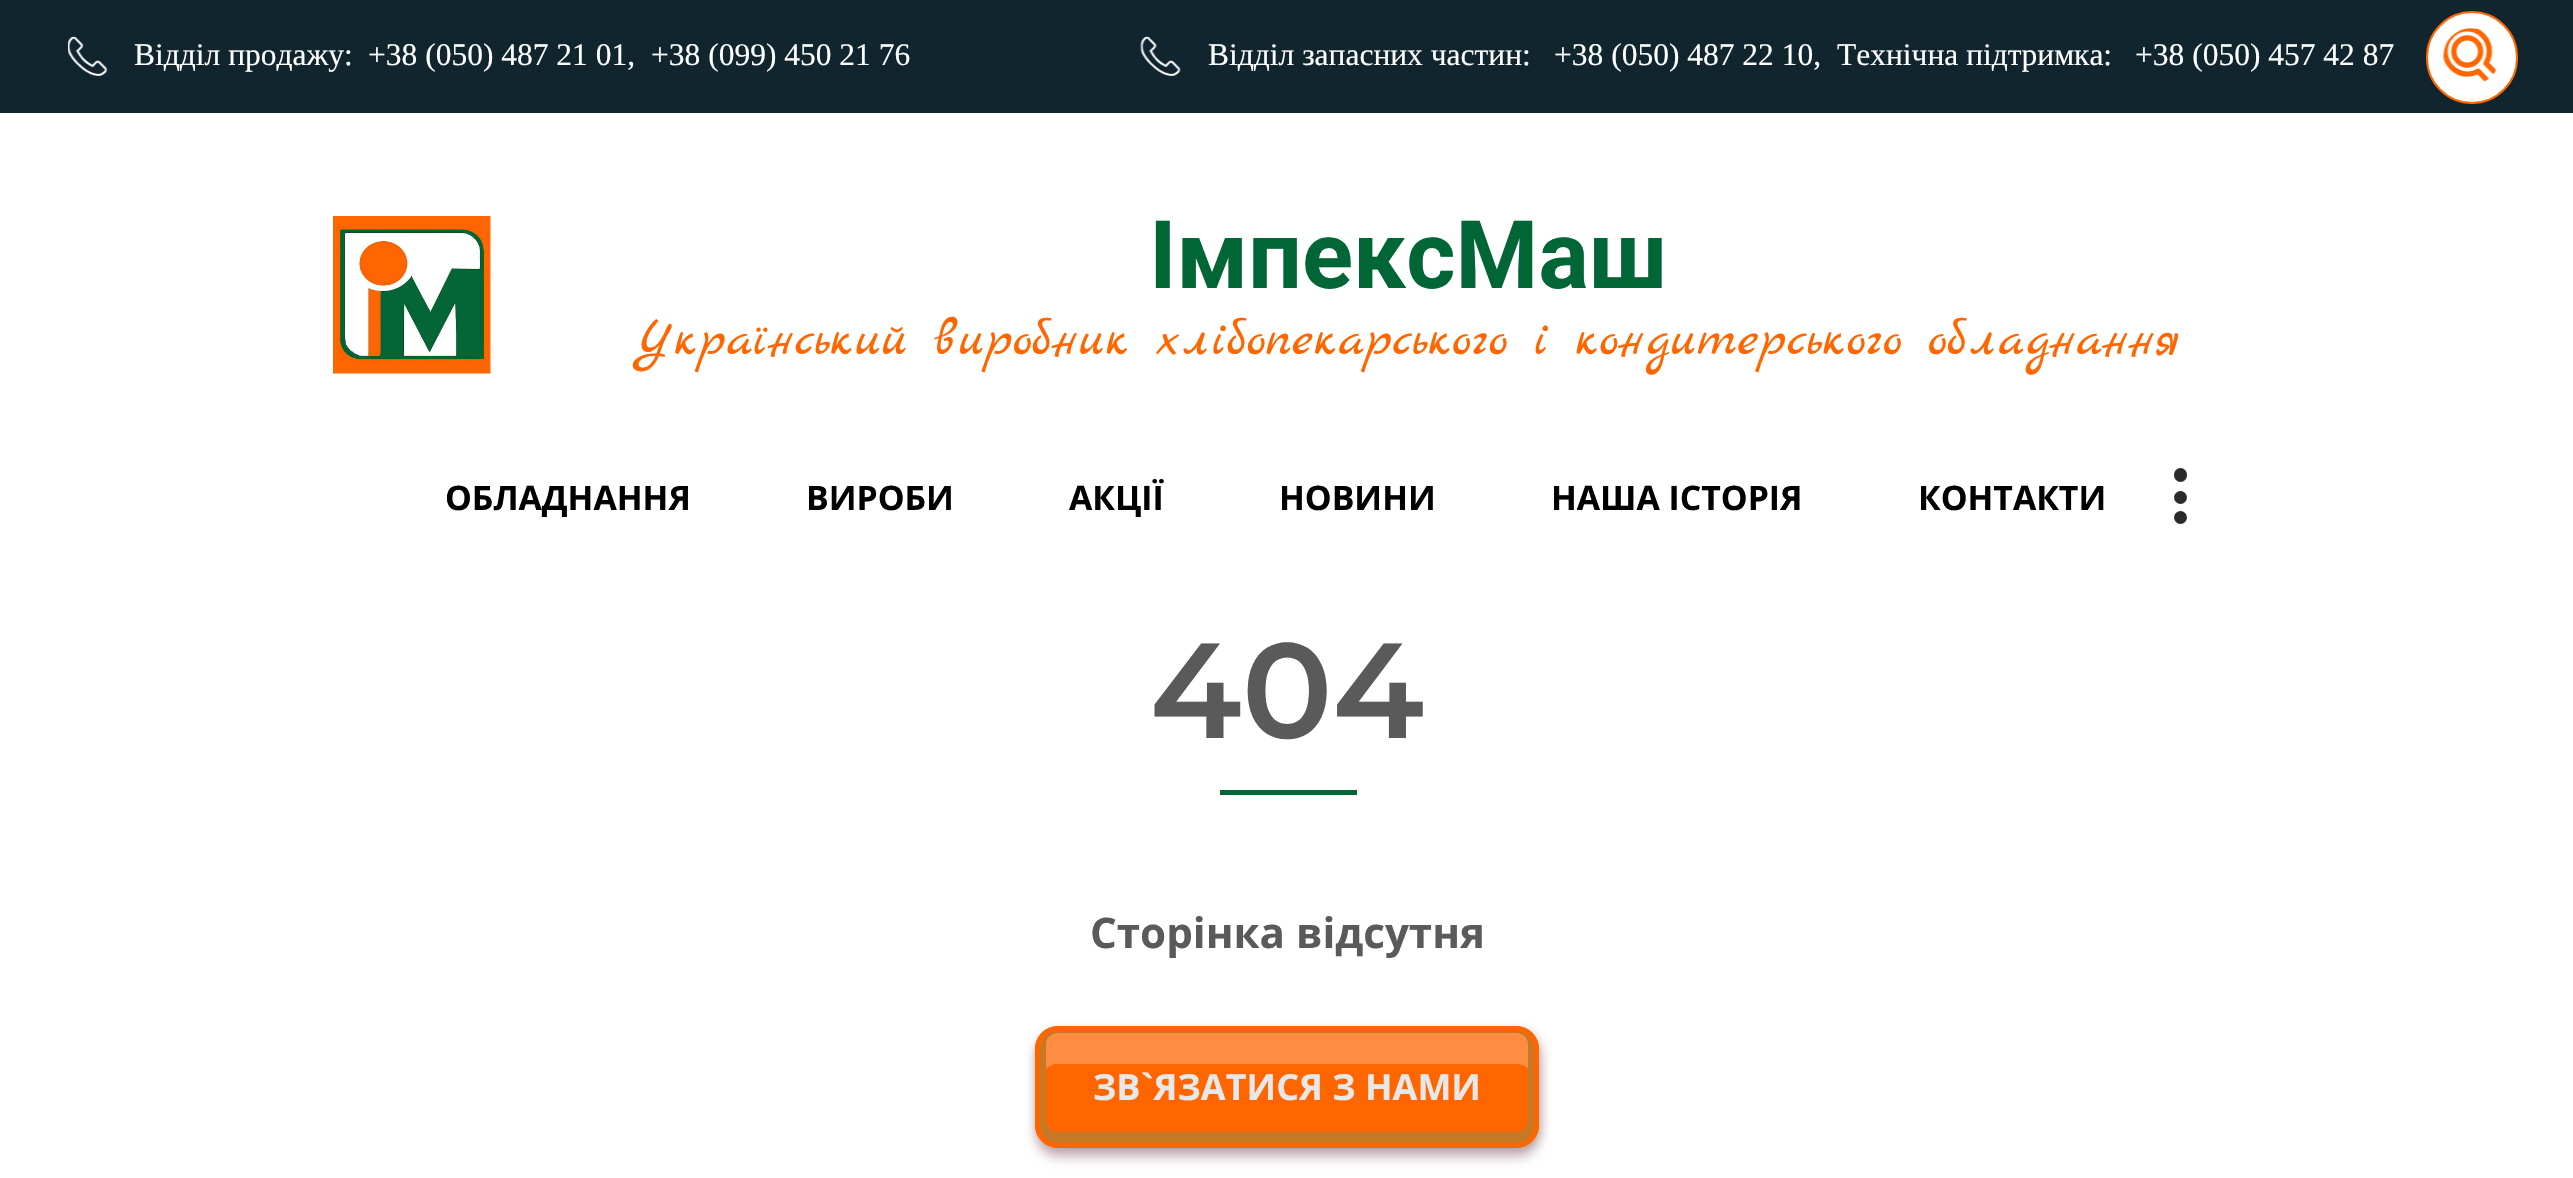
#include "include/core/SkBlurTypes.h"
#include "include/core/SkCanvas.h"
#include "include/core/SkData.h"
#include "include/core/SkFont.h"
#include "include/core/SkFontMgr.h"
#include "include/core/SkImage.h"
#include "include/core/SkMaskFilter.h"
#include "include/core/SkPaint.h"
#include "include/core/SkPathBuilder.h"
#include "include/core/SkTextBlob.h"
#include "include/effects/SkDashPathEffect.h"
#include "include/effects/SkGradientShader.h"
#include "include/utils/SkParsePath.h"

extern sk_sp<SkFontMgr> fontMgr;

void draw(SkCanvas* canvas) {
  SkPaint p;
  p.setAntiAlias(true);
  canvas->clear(SK_ColorWHITE);
  p.setColor(SkColorSetRGB(16, 37, 46));
  canvas->drawRect(SkRect::MakeLTRB(0, 0, 2573, 113), p);
  canvas->drawImageRect(SkImages::DeferredFromEncodedData(SkData::MakeFromFileName("images/1.png")), SkRect::MakeLTRB(68, 36, 108, 76), SkSamplingOptions());
  canvas->drawImageRect(SkImages::DeferredFromEncodedData(SkData::MakeFromFileName("images/2.png")), SkRect::MakeLTRB(1140, 36, 1181, 76), SkSamplingOptions());
  p.setColor(SK_ColorWHITE);
  canvas->drawRoundRect(SkRect::MakeLTRB(2427, 12, 2517, 103), 45, 45, p);
  p.setStyle(SkPaint::kStroke_Style);
  p.setStrokeWidth(2);
  p.setColor(SkColorSetRGB(255, 102, 0));
  canvas->drawRoundRect(SkRect::MakeLTRB(2427, 12, 2517, 103), 45, 45, p);
  canvas->drawImageRect(SkImages::DeferredFromEncodedData(SkData::MakeFromFileName("images/3.png")), SkRect::MakeLTRB(2443, 28, 2497, 82), SkSamplingOptions());
  canvas->drawImageRect(SkImages::DeferredFromEncodedData(SkData::MakeFromFileName("images/4.png")), SkRect::MakeLTRB(333, 216, 491, 374), SkSamplingOptions());
  p.setStyle(SkPaint::kFill_Style);
  p.setColor(SkColorSetRGB(43, 43, 44));
  canvas->drawRoundRect(SkRect::MakeLTRB(2174, 468, 2187, 482), 6.5f, 6.5f, p);
  canvas->drawCircle(2180.5f, 497.5f, 6.5f, p);
  canvas->drawCircle(2180.5f, 517.5f, 6.5f, p);
  p.setColor(SkColorSetRGB(0, 102, 53));
  canvas->drawRect(SkRect::MakeLTRB(1220, 790, 1357, 795), p);
  p.setColor(SkColorSetRGB(204, 187, 176));
  p.setMaskFilter(SkMaskFilter::MakeBlur(kNormal_SkBlurStyle, 5.5f));
  canvas->drawRoundRect(SkRect::MakeLTRB(1037, 1031, 1541, 1152), 23, 23, p);
  p.setMaskFilter(nullptr);
  p.setColor(SkColorSetARGB(43, 52, 1, 49));
  p.setMaskFilter(SkMaskFilter::MakeBlur(kNormal_SkBlurStyle, 5.5f));
  canvas->drawRoundRect(SkRect::MakeLTRB(1035, 1037, 1539, 1159), 23, 23, p);
  p.setMaskFilter(nullptr);
  p.setColor(SkColorSetRGB(255, 102, 0));
  canvas->drawRoundRect(SkRect::MakeLTRB(1035, 1026, 1539, 1148), 23, 23, p);
  p.setColor(SkColorSetRGB(255, 140, 64));
  canvas->drawPath(SkPathBuilder().moveTo(1058, 1064).lineTo(1516, 1064).cubicTo(1526, 1064, 1534, 1072, 1534, 1082).lineTo(1534, 1131).lineTo(1535, 1125).lineTo(1535, 1049).cubicTo(1535, 1039, 1527, 1031, 1517, 1031).lineTo(1058, 1031).cubicTo(1048, 1031, 1040, 1039, 1040, 1049).lineTo(1040, 1082).cubicTo(1040, 1072, 1048, 1064, 1058, 1064).close().detach(), p);
  p.setColor(SkColorSetRGB(198, 120, 37));
  canvas->drawPath(SkPathBuilder(SkPathFillType::kEvenOdd).moveTo(1058, 1031).cubicTo(1048, 1031, 1040, 1039, 1040, 1049).lineTo(1040, 1125).cubicTo(1040, 1135, 1048, 1143, 1058, 1143).lineTo(1517, 1143).cubicTo(1527, 1143, 1535, 1135, 1535, 1125).lineTo(1535, 1049).cubicTo(1535, 1039, 1527, 1031, 1517, 1031).close().moveTo(1058, 1033).cubicTo(1051, 1033, 1046, 1038, 1046, 1044).lineTo(1046, 1120).cubicTo(1046, 1127, 1051, 1132, 1058, 1132).lineTo(1516, 1132).cubicTo(1523, 1132, 1528, 1127, 1528, 1120).lineTo(1528, 1044).cubicTo(1528, 1038, 1523, 1033, 1516, 1033).close().detach(), p);
  p.setStyle(SkPaint::kStroke_Style);
  p.setStrokeWidth(5);
  p.setColor(SkColorSetRGB(255, 102, 0));
  canvas->drawRoundRect(SkRect::MakeLTRB(1037.5f, 1028.5f, 1536.5f, 1145.5f), 20.5f, 20.5f, p);
  SkFont font1(fontMgr->matchFamilyStyle("Liberation Serif", SkFontStyle::Normal()), 31.5f);
  font1.setSubpixel(true);
  p.setStyle(SkPaint::kFill_Style);
  p.setColor(SK_ColorWHITE);
  canvas->drawString("Відділ продажу:", 134, 65, font1, p);
  canvas->drawString("+38 (050) 487 21 01,", 368, 65, font1, p);
  canvas->drawString("+38 (099) 450 21 76", 651, 65, font1, p);
  canvas->drawString("Відділ запасних частин:", 1208, 65, font1, p);
  canvas->drawString("+38 (050) 487 22 10,", 1554, 65, font1, p);
  canvas->drawString("Технічна підтримка:", 1837, 65, font1, p);
  canvas->drawString("+38 (050) 457 42 87", 2135, 65, font1, p);
  SkFont font2(fontMgr->matchFamilyStyle("Roboto", SkFontStyle::Bold()), 94.5f);
  font2.setSubpixel(true);
  p.setColor(SkColorSetRGB(0, 102, 53));
  canvas->drawString("ІмпексМаш", 1149, 288, font2, p);
  SkFont font3(fontMgr->matchFamilyStyle("Marck Script", SkFontStyle::Normal()), 54);
  font3.setSubpixel(true);
  p.setColor(SkColorSetRGB(255, 102, 0));
  canvas->drawString("Український виробник", 636, 354, font3, p);
  canvas->drawString("хлібопекарського і кондитерського обладнання", 1155, 354, font3, p);
  SkFont font4(fontMgr->matchFamilyStyle("Open Sans", SkFontStyle::Bold()), 33.75f);
  font4.setSubpixel(true);
  p.setColor(SK_ColorBLACK);
  canvas->drawString("ОБЛАДНАННЯ", 445, 510, font4, p);
  canvas->drawString("ВИРОБИ", 806, 510, font4, p);
  canvas->drawString("АКЦІЇ", 1069, 510, font4, p);
  canvas->drawString("НОВИНИ", 1279, 510, font4, p);
  canvas->drawString("НАША ІСТОРІЯ", 1551, 510, font4, p);
  canvas->drawString("КОНТАКТИ", 1918, 510, font4, p);
  SkFont font5(fontMgr->matchFamilyStyle("Montserrat", SkFontStyle(600, SkFontStyle::kNormal_Width, SkFontStyle::kUpright_Slant)), 135);
  font5.setSubpixel(true);
  p.setColor(SkColorSetRGB(90, 90, 90));
  canvas->drawString("404", 1150, 738, font5, p);
  SkFont font6(fontMgr->matchFamilyStyle("Open Sans", SkFontStyle::Bold()), 42.1f);
  font6.setSubpixel(true);
  canvas->drawString("Сторінка відсутня", 1090, 948, font6, p);
  SkFont font7(fontMgr->matchFamilyStyle("Open Sans", SkFontStyle::Bold()), 36);
  font7.setSubpixel(true);
  p.setColor(SkColorSetRGB(232, 232, 232));
  canvas->drawString("ЗВ`ЯЗАТИСЯ З НАМИ", 1093, 1100, font7, p);
}
